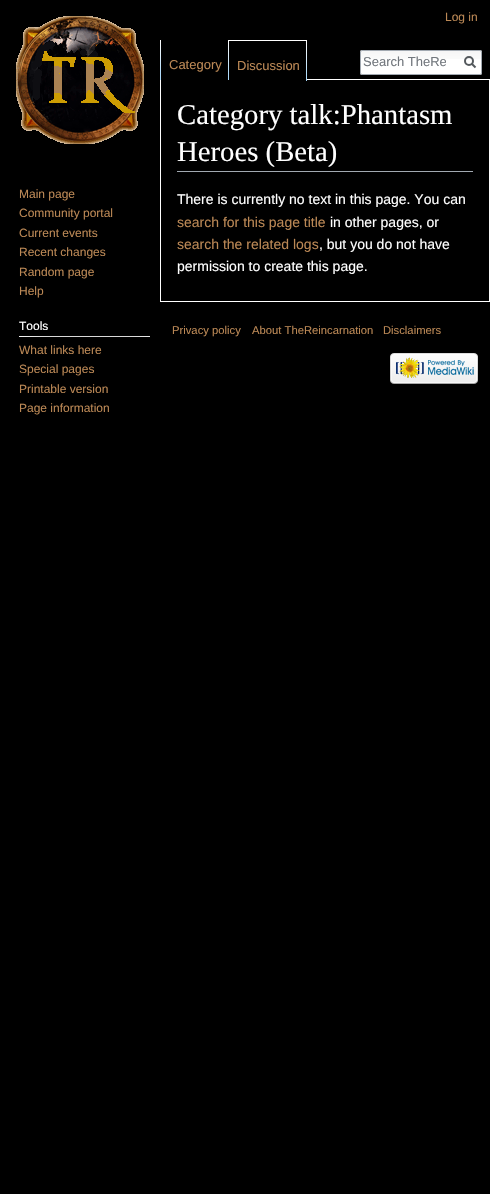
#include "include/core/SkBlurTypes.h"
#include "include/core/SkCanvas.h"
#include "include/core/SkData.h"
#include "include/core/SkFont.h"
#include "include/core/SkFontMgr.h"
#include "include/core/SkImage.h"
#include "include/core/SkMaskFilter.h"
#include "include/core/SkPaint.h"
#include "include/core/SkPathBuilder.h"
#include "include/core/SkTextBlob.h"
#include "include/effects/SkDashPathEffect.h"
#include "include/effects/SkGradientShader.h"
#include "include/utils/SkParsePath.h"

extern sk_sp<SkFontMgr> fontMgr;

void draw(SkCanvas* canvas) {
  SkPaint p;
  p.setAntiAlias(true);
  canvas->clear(SK_ColorBLACK);
  p.setStyle(SkPaint::kStroke_Style);
  p.setStrokeWidth(1);
  p.setColor(SK_ColorWHITE);
  canvas->drawRect(SkRect::MakeLTRB(160.5f, 79.5f, 489.5f, 301.5f), p);
  canvas->drawImageRect(SkImages::DeferredFromEncodedData(SkData::MakeFromFileName("images/1.png")), SkRect::MakeLTRB(160, 40, 161, 80), SkSamplingOptions());
  p.setStyle(SkPaint::kFill_Style);
  p.setColor(SK_ColorBLACK);
  canvas->drawRect(SkRect::MakeLTRB(161, 79, 228, 80), p);
  canvas->drawImageRect(SkImages::DeferredFromEncodedData(SkData::MakeFromFileName("images/1.png")), SkRect::MakeLTRB(228, 40, 229, 80), SkSamplingOptions());
  canvas->drawRect(SkRect::MakeLTRB(229, 79, 306, 80), p);
  p.setColor(SK_ColorWHITE);
  canvas->drawRect(SkRect::MakeLTRB(229, 40, 307, 41), p);
  canvas->drawImageRect(SkImages::DeferredFromEncodedData(SkData::MakeFromFileName("images/1.png")), SkRect::MakeLTRB(306, 41, 307, 81), SkSamplingOptions());
  canvas->drawRoundRect(SkRect::MakeLTRB(360, 50, 482, 75), 2, 2, p);
  canvas->drawImageRect(SkImages::DeferredFromEncodedData(SkData::MakeFromFileName("images/2.png")), SkRect::MakeLTRB(360, 51, 482, 59), SkSamplingOptions());
  p.setStyle(SkPaint::kStroke_Style);
  p.setColor(SkColorSetRGB(162, 169, 177));
  canvas->drawRoundRect(SkRect::MakeLTRB(360.5f, 50.5f, 481.5f, 74.5f), 1.5f, 1.5f, p);
  p.setStrokeWidth(2);
  p.setColor(SkColorSetRGB(84, 89, 93));
  canvas->drawPath(SkPathBuilder().moveTo(475.5f, 67.5f).lineTo(471.5f, 63.5f).detach(), p);
  canvas->drawCircle(469, 61, 4, p);
  canvas->drawImageRect(SkImages::DeferredFromEncodedData(SkData::MakeFromFileName("images/3.png")), SkRect::MakeLTRB(16, 16, 144, 144), SkSamplingOptions());
  canvas->drawImageRect(SkImages::DeferredFromEncodedData(SkData::MakeFromFileName("images/4.png")), SkRect::MakeLTRB(19, 336, 150, 337), SkSamplingOptions());
  p.setStyle(SkPaint::kFill_Style);
  p.setColor(SkColorSetRGB(162, 169, 177));
  canvas->drawRect(SkRect::MakeLTRB(177, 171, 473, 172), p);
  canvas->drawImageRect(SkImages::DeferredFromEncodedData(SkData::MakeFromFileName("images/5.png")), SkRect::MakeLTRB(390, 353, 478, 384), SkSamplingOptions());
  SkFont font1(fontMgr->matchFamilyStyle("Liberation Sans", SkFontStyle::Normal()), 12);
  font1.setSubpixel(true);
  p.setColor(SkColorSetRGB(187, 136, 85));
  canvas->drawString("Log in", 445, 21, font1, p);
  SkFont font2(fontMgr->matchFamilyStyle("Liberation Sans", SkFontStyle::Normal()), 13);
  font2.setSubpixel(true);
  canvas->drawString("Category", 169, 69, font2, p);
  canvas->drawString("Discussion", 237, 70, font2, p);
  canvas->save();
  canvas->clipRect(SkRect::MakeLTRB(363, 54, 446, 69));
  p.setColor(SkColorSetRGB(114, 119, 125));
  canvas->drawString("Search TheRe", 363, 66, font2, p);
  canvas->restore();
  p.setColor(SkColorSetRGB(187, 136, 85));
  canvas->drawString("Main page", 19, 198, font1, p);
  canvas->drawString("Community portal", 19, 217, font1, p);
  canvas->drawString("Current events", 19, 237, font1, p);
  canvas->drawString("Recent changes", 19, 256, font1, p);
  canvas->drawString("Random page", 19, 276, font1, p);
  canvas->drawString("Help", 19, 295, font1, p);
  p.setColor(SK_ColorWHITE);
  canvas->drawString("Tools", 19, 330, font1, p);
  p.setColor(SkColorSetRGB(187, 136, 85));
  canvas->drawString("What links here", 19, 354, font1, p);
  canvas->drawString("Special pages", 19, 373, font1, p);
  canvas->drawString("Printable version", 19, 393, font1, p);
  canvas->drawString("Page information", 19, 412, font1, p);
  SkFont font3(fontMgr->matchFamilyStyle("Liberation Serif", SkFontStyle::Normal()), 28.75f);
  font3.setSubpixel(true);
  p.setColor(SK_ColorWHITE);
  canvas->drawString("Category talk:Phantasm", 177, 124, font3, p);
  canvas->drawString("Heroes (Beta)", 177, 161, font3, p);
  SkFont font4(fontMgr->matchFamilyStyle("Liberation Sans", SkFontStyle::Normal()), 14);
  font4.setSubpixel(true);
  canvas->drawString("There is currently no text in this page. You can", 177, 204, font4, p);
  p.setColor(SkColorSetRGB(187, 136, 85));
  canvas->drawString("search for this page title", 177, 227, font4, p);
  p.setColor(SK_ColorWHITE);
  canvas->drawString("in other pages, or", 330, 227, font4, p);
  p.setColor(SkColorSetRGB(187, 136, 85));
  canvas->drawString("search the related logs", 177, 249, font4, p);
  p.setColor(SK_ColorWHITE);
  canvas->drawString(", but you do not have", 319, 249, font4, p);
  canvas->drawString("permission to create this page.", 177, 271, font4, p);
  SkFont font5(fontMgr->matchFamilyStyle("Liberation Sans", SkFontStyle::Normal()), 11.25f);
  font5.setSubpixel(true);
  p.setColor(SkColorSetRGB(187, 136, 85));
  canvas->drawString("Privacy policy", 172, 334, font5, p);
  canvas->drawString("About TheReincarnation", 252, 334, font5, p);
  canvas->drawString("Disclaimers", 383, 334, font5, p);
}
